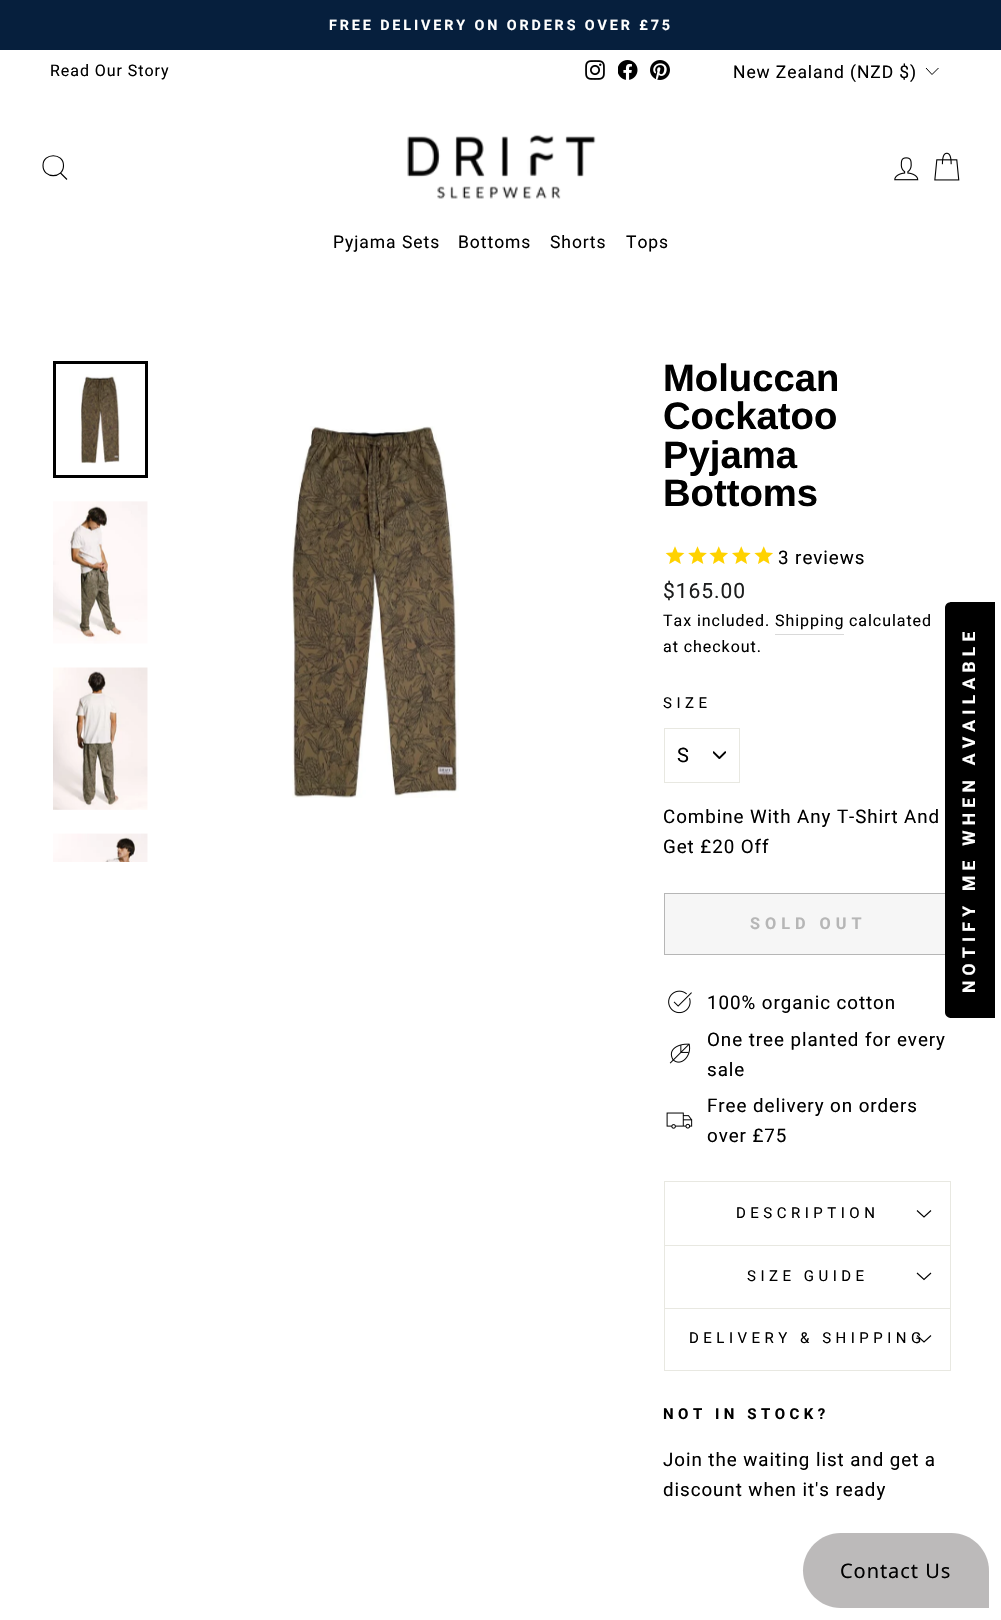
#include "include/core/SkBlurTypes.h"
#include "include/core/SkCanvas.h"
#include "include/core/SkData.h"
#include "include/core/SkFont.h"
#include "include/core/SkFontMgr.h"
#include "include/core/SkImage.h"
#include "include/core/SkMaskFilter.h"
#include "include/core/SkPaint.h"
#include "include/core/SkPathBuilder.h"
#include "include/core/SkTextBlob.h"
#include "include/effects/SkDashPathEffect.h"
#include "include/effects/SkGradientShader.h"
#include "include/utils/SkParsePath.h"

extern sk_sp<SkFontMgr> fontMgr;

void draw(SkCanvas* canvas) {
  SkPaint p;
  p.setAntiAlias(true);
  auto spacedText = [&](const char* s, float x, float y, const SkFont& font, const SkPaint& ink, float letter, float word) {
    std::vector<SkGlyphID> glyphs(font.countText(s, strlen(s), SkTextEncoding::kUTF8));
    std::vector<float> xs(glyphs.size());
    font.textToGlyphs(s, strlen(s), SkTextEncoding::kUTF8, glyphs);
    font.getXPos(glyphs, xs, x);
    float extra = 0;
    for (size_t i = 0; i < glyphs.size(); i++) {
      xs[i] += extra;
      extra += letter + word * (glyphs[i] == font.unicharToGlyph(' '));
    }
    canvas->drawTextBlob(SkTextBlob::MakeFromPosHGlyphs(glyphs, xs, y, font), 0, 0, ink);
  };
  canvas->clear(SK_ColorWHITE);
  p.setColor(SkColorSetRGB(6, 31, 61));
  canvas->drawRect(SkRect::MakeLTRB(0, 0, 1001, 50), p);
  canvas->drawImageRect(SkImages::DeferredFromEncodedData(SkData::MakeFromFileName("images/1.png")), SkRect::MakeLTRB(585, 60, 605, 80), SkSamplingOptions());
  canvas->drawImageRect(SkImages::DeferredFromEncodedData(SkData::MakeFromFileName("images/2.png")), SkRect::MakeLTRB(618, 60, 638, 80), SkSamplingOptions());
  canvas->drawImageRect(SkImages::DeferredFromEncodedData(SkData::MakeFromFileName("images/3.png")), SkRect::MakeLTRB(650, 60, 670, 80), SkSamplingOptions());
  p.setStyle(SkPaint::kStroke_Style);
  p.setStrokeWidth(1);
  p.setColor(SK_ColorBLACK);
  canvas->drawPath(SkPathBuilder().moveTo(926, 68).lineTo(932, 74.5f).lineTo(938.5f, 68).detach(), p);
  p.setStrokeWidth(1.1f);
  canvas->drawPath(SkPathBuilder().moveTo(63.5f, 165.5f).cubicTo(63.5f, 179, 43, 179, 43, 165.5f).cubicTo(43, 152.5f, 63.5f, 152.5f, 63.5f, 165.5f).close().moveTo(67, 179.5f).lineTo(60.5f, 173).detach(), p);
  canvas->drawImageRect(SkImages::DeferredFromEncodedData(SkData::MakeFromFileName("images/4.png")), SkRect::MakeLTRB(407, 134, 596, 199), SkSamplingOptions());
  canvas->drawImageRect(SkImages::DeferredFromEncodedData(SkData::MakeFromFileName("images/5.png")), SkRect::MakeLTRB(894, 157, 919, 181), SkSamplingOptions());
  canvas->drawImageRect(SkImages::DeferredFromEncodedData(SkData::MakeFromFileName("images/6.png")), SkRect::MakeLTRB(934, 152, 960, 181), SkSamplingOptions());
  canvas->drawImageRect(SkImages::DeferredFromEncodedData(SkData::MakeFromFileName("images/7.png")), SkRect::MakeLTRB(79, 374, 120, 464), SkSamplingOptions());
  p.setStrokeWidth(3);
  canvas->drawRect(SkRect::MakeLTRB(54.5f, 362.5f, 146.5f, 476.5f), p);
  canvas->drawImageRect(SkImages::DeferredFromEncodedData(SkData::MakeFromFileName("images/8.png")), SkRect::MakeLTRB(53, 501, 148, 644), SkSamplingOptions());
  canvas->drawImageRect(SkImages::DeferredFromEncodedData(SkData::MakeFromFileName("images/9.png")), SkRect::MakeLTRB(53, 667, 148, 810), SkSamplingOptions());
  canvas->drawImageRect(SkImages::DeferredFromEncodedData(SkData::MakeFromFileName("images/10.png")), SkRect::MakeLTRB(53, 833, 148, 862), SkSamplingOptions());
  canvas->drawImageRect(SkImages::DeferredFromEncodedData(SkData::MakeFromFileName("images/11.png")), SkRect::MakeLTRB(292, 426, 459, 798), SkSamplingOptions());
  canvas->drawImageRect(SkImages::DeferredFromEncodedData(SkData::MakeFromFileName("images/12.png")), SkRect::MakeLTRB(665, 546, 685, 564), SkSamplingOptions());
  canvas->drawImageRect(SkImages::DeferredFromEncodedData(SkData::MakeFromFileName("images/13.png")), SkRect::MakeLTRB(688, 546, 707, 564), SkSamplingOptions());
  canvas->drawImageRect(SkImages::DeferredFromEncodedData(SkData::MakeFromFileName("images/14.png")), SkRect::MakeLTRB(709, 546, 728, 564), SkSamplingOptions());
  canvas->drawImageRect(SkImages::DeferredFromEncodedData(SkData::MakeFromFileName("images/15.png")), SkRect::MakeLTRB(732, 546, 751, 564), SkSamplingOptions());
  canvas->drawImageRect(SkImages::DeferredFromEncodedData(SkData::MakeFromFileName("images/14.png")), SkRect::MakeLTRB(754, 546, 773, 564), SkSamplingOptions());
  p.setStyle(SkPaint::kFill_Style);
  p.setColor(SkColorSetRGB(217, 217, 217));
  canvas->drawRect(SkRect::MakeLTRB(775, 634, 844, 635), p);
  canvas->drawImageRect(SkImages::DeferredFromEncodedData(SkData::MakeFromFileName("images/16.png")), SkRect::MakeLTRB(713, 751, 726, 759), SkSamplingOptions());
  p.setStyle(SkPaint::kStroke_Style);
  p.setStrokeWidth(1);
  p.setColor(SkColorSetRGB(232, 232, 225));
  canvas->drawRect(SkRect::MakeLTRB(664.5f, 728.5f, 739.5f, 782.5f), p);
  p.setStyle(SkPaint::kFill_Style);
  p.setColor(SkColorSetRGB(246, 246, 246));
  canvas->drawRect(SkRect::MakeLTRB(665, 894, 945, 954), p);
  p.setStyle(SkPaint::kStroke_Style);
  p.setColor(SkColorSetRGB(182, 182, 182));
  canvas->drawRect(SkRect::MakeLTRB(664.5f, 893.5f, 950.5f, 954.5f), p);
  canvas->drawImageRect(SkImages::DeferredFromEncodedData(SkData::MakeFromFileName("images/17.png")), SkRect::MakeLTRB(668, 990, 692, 1014), SkSamplingOptions());
  canvas->drawImageRect(SkImages::DeferredFromEncodedData(SkData::MakeFromFileName("images/18.png")), SkRect::MakeLTRB(669, 1043, 691, 1064), SkSamplingOptions());
  canvas->drawImageRect(SkImages::DeferredFromEncodedData(SkData::MakeFromFileName("images/19.png")), SkRect::MakeLTRB(666, 1112, 693, 1129), SkSamplingOptions());
  p.setStyle(SkPaint::kFill_Style);
  p.setColor(SkColorSetRGB(232, 232, 225));
  canvas->drawRect(SkRect::MakeLTRB(664, 1245, 951, 1246), p);
  canvas->drawRect(SkRect::MakeLTRB(664, 1181, 951, 1182), p);
  canvas->drawRect(SkRect::MakeLTRB(950, 1181, 951, 1245), p);
  canvas->drawRect(SkRect::MakeLTRB(664, 1181, 665, 1245), p);
  p.setStyle(SkPaint::kStroke_Style);
  p.setStrokeWidth(1.1f);
  p.setColor(SK_ColorBLACK);
  canvas->drawPath(SkPathBuilder().moveTo(917, 1210.5f).lineTo(924, 1217).lineTo(931, 1210.5f).detach(), p);
  p.setStyle(SkPaint::kFill_Style);
  p.setColor(SkColorSetRGB(232, 232, 225));
  canvas->drawRect(SkRect::MakeLTRB(664, 1308, 951, 1309), p);
  canvas->drawRect(SkRect::MakeLTRB(950, 1246, 951, 1308), p);
  canvas->drawRect(SkRect::MakeLTRB(664, 1246, 665, 1308), p);
  p.setStyle(SkPaint::kStroke_Style);
  p.setColor(SK_ColorBLACK);
  canvas->drawPath(SkPathBuilder().moveTo(917, 1273).lineTo(924, 1279.5f).lineTo(931, 1273).detach(), p);
  p.setStyle(SkPaint::kFill_Style);
  p.setColor(SkColorSetRGB(232, 232, 225));
  canvas->drawRect(SkRect::MakeLTRB(664, 1370, 951, 1371), p);
  canvas->drawRect(SkRect::MakeLTRB(950, 1309, 951, 1370), p);
  canvas->drawRect(SkRect::MakeLTRB(664, 1309, 665, 1370), p);
  p.setStyle(SkPaint::kStroke_Style);
  p.setColor(SK_ColorBLACK);
  canvas->drawPath(SkPathBuilder().moveTo(917, 1335.5f).lineTo(924, 1342).lineTo(931, 1335.5f).detach(), p);
  p.setStyle(SkPaint::kFill_Style);
  canvas->drawPath(SkPathBuilder().moveTo(945, 1012).lineTo(945, 608).cubicTo(945, 604, 948, 602, 952, 602).lineTo(995, 602).lineTo(995, 1018).lineTo(952, 1018).cubicTo(948, 1018, 945, 1016, 945, 1012).close().detach(), p);
  p.setColor(SkColorSetRGB(188, 186, 186));
  canvas->drawPath(SkPathBuilder().moveTo(840.5f, 1533).lineTo(951.5f, 1533).cubicTo(972, 1533, 989, 1550, 989, 1570.5f).lineTo(989, 1608).lineTo(840.5f, 1608).cubicTo(820, 1608, 803, 1591, 803, 1570.5f).cubicTo(803, 1550, 820, 1533, 840.5f, 1533).close().detach(), p);
  SkFont font1(fontMgr->matchFamilyStyle("Roboto", SkFontStyle::Bold()), 14.3f);
  font1.setSubpixel(true);
  p.setColor(SK_ColorWHITE);
  spacedText("FREE DELIVERY ON ORDERS OVER £75", 329, 30, font1, p, 2.9f, 0);
  SkFont font2(fontMgr->matchFamilyStyle("Roboto", SkFontStyle::Normal()), 16);
  font2.setSubpixel(true);
  p.setColor(SK_ColorBLACK);
  spacedText("Read Our Story", 50, 76, font2, p, 0.95f, 0);
  SkFont font3(fontMgr->matchFamilyStyle("Roboto", SkFontStyle::Normal()), 17.5f);
  font3.setSubpixel(true);
  spacedText("New Zealand (NZD $)", 733, 78, font3, p, 0.9f, 0);
  spacedText("Pyjama Sets", 333, 248, font3, p, 0.95f, 0);
  spacedText("Bottoms", 458, 248, font3, p, 0.95f, 0);
  spacedText("Shorts", 550, 248, font3, p, 0.95f, 0);
  spacedText("Tops", 626, 248, font3, p, 0.95f, 0);
  SkFont font4(fontMgr->matchFamilyStyle("Arimo", SkFontStyle::Bold()), 38.25f);
  font4.setSubpixel(true);
  canvas->drawString("Moluccan", 663, 391, font4, p);
  canvas->drawString("Cockatoo", 663, 429, font4, p);
  canvas->drawString("Pyjama", 663, 468, font4, p);
  canvas->drawString("Bottoms", 663, 506, font4, p);
  SkFont font5(fontMgr->matchFamilyStyle("Roboto", SkFontStyle::Normal()), 18.75f);
  font5.setSubpixel(true);
  spacedText("3 reviews", 778, 564, font5, p, 0.95f, 0);
  SkFont font6(fontMgr->matchFamilyStyle("Roboto", SkFontStyle::Normal()), 21);
  font6.setSubpixel(true);
  p.setColor(SkColorSetRGB(28, 29, 29));
  spacedText("$165.00", 663, 598, font6, p, 0.95f, 0);
  p.setColor(SK_ColorBLACK);
  spacedText("Tax included. Shipping", 663, 626, font2, p, 0.95f, 0);
  spacedText("calculated", 849, 626, font2, p, 0.95f, 0);
  spacedText("at checkout.", 663, 652, font2, p, 0.95f, 0);
  SkFont font7(fontMgr->matchFamilyStyle("Roboto", SkFontStyle::Normal()), 15);
  font7.setSubpixel(true);
  spacedText("SIZE", 663, 708, font7, p, 4.5f, 0);
  SkFont font8(fontMgr->matchFamilyStyle("Roboto", SkFontStyle::Normal()), 20);
  font8.setSubpixel(true);
  spacedText("S", 677, 762, font8, p, 1, 0);
  spacedText("Combine With Any T-Shirt And", 663, 823, font5, p, 0.95f, 0);
  spacedText("Get £20 Off", 663, 853, font5, p, 0.95f, 0);
  SkFont font9(fontMgr->matchFamilyStyle("Roboto", SkFontStyle::Bold()), 16.25f);
  font9.setSubpixel(true);
  p.setColor(SkColorSetRGB(182, 182, 182));
  spacedText("SOLD OUT", 750, 929, font9, p, 5, 0);
  p.setColor(SK_ColorBLACK);
  spacedText("100% organic cotton", 707, 1009, font5, p, 0.95f, 0);
  spacedText("One tree planted for every", 707, 1046, font5, p, 0.95f, 0);
  spacedText("sale", 707, 1076, font5, p, 0.95f, 0);
  spacedText("Free delivery on orders", 707, 1112, font5, p, 0.95f, 0);
  spacedText("over £75", 707, 1142, font5, p, 0.95f, 0);
  spacedText("DESCRIPTION", 736, 1218, font7, p, 4.5f, 0);
  spacedText("SIZE GUIDE", 747, 1281, font7, p, 4.5f, 0);
  spacedText("DELIVERY & SHIPPING", 689, 1343, font7, p, 4.5f, 0);
  SkFont font10(fontMgr->matchFamilyStyle("Roboto", SkFontStyle::Bold()), 15);
  font10.setSubpixel(true);
  spacedText("NOT IN STOCK?", 663, 1419, font10, p, 4.5f, 0);
  spacedText("Join the waiting list and get a", 663, 1466, font5, p, 0.95f, 0);
  spacedText("discount when it's ready", 663, 1496, font5, p, 0.95f, 0);
  SkFont font11(fontMgr->matchFamilyStyle("Roboto", SkFontStyle::Bold()), 17.5f);
  font11.setSubpixel(true);
  p.setColor(SK_ColorWHITE);
  canvas->save();
  canvas->rotate(-90, 975, 993);
  spacedText("NOTIFY ME WHEN AVAILABLE", 975, 993, font11, p, 5.25f, 0);
  canvas->restore();
  SkFont font12(fontMgr->matchFamilyStyle("Noto Sans", SkFontStyle::Normal()), 20);
  font12.setSubpixel(true);
  p.setColor(SK_ColorBLACK);
  spacedText("Contact Us", 840, 1578, font12, p, 0.95f, 0);
}
